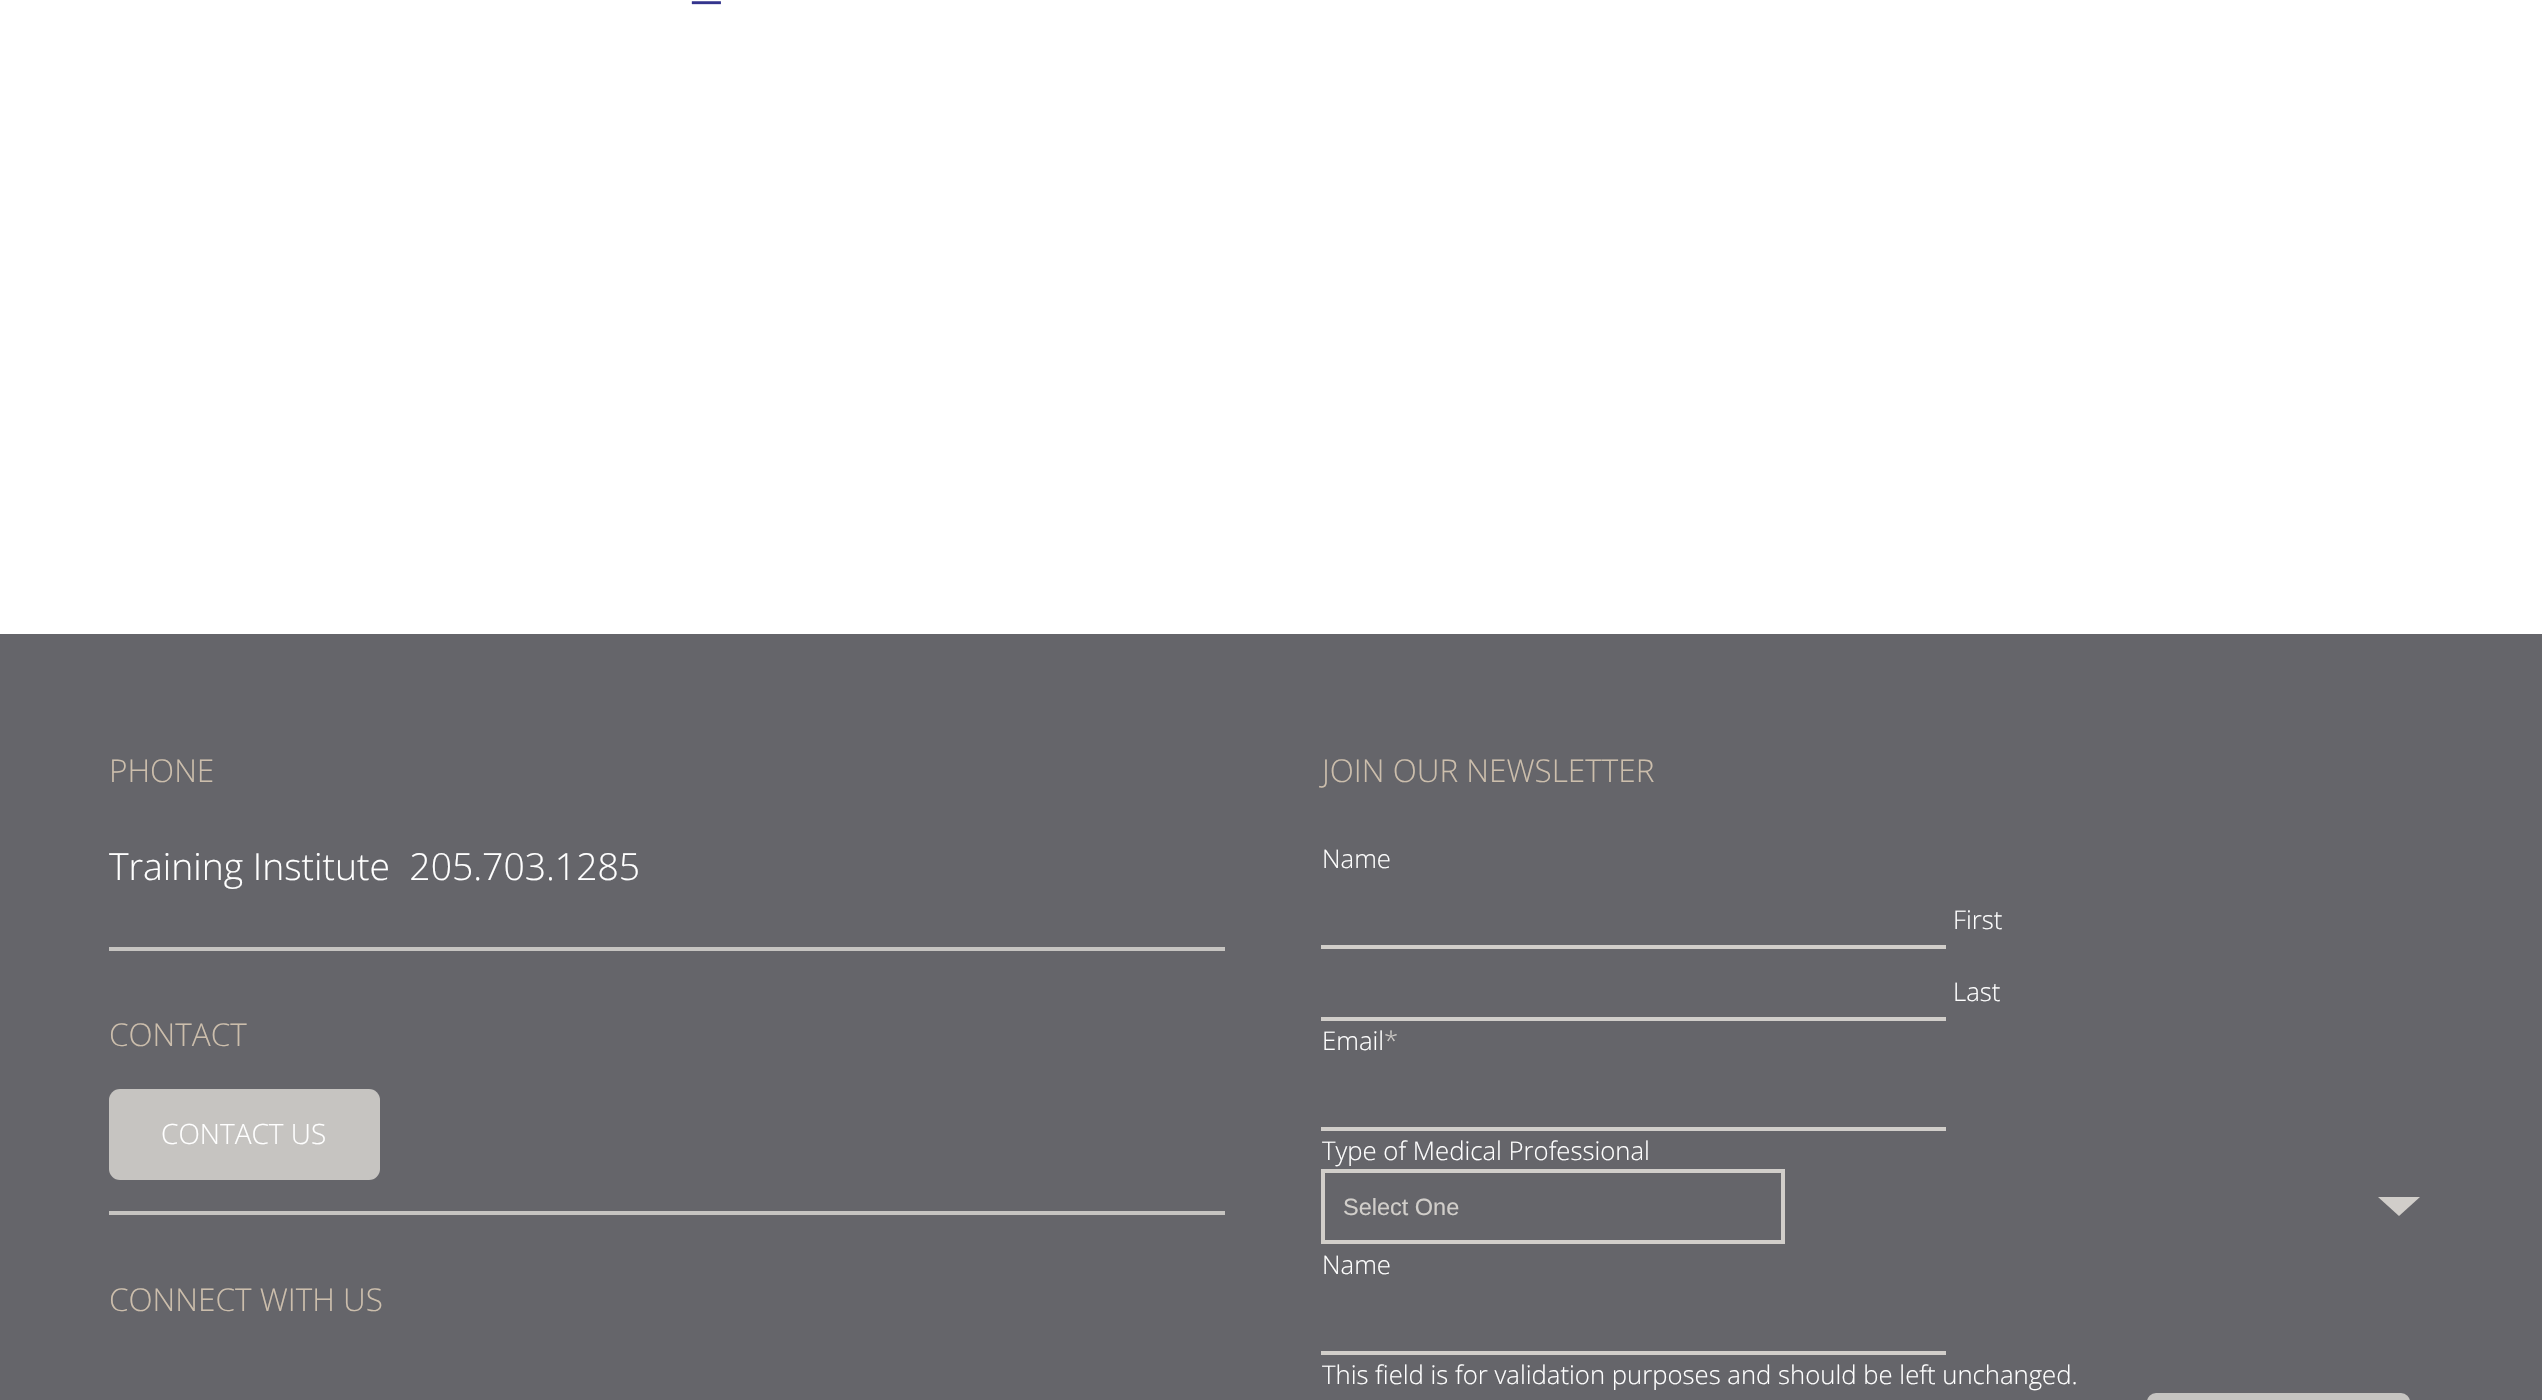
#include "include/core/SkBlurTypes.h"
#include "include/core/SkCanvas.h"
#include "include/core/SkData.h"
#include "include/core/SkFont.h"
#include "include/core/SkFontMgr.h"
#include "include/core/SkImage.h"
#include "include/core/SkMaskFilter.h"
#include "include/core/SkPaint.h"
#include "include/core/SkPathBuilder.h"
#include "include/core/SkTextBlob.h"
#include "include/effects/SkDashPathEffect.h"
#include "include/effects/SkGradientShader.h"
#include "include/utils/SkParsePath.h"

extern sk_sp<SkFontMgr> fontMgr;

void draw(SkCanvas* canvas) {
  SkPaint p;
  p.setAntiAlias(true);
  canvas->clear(SK_ColorWHITE);
  p.setColor(SkColorSetRGB(101, 101, 106));
  canvas->drawRect(SkRect::MakeLTRB(0, 634, 2542, 1400), p);
  p.setColor(SkColorSetRGB(198, 196, 193));
  canvas->drawRect(SkRect::MakeLTRB(109, 947, 1225, 951), p);
  canvas->drawRect(SkRect::MakeLTRB(109, 1211, 1225, 1215), p);
  canvas->drawRoundRect(SkRect::MakeLTRB(109, 1089, 380, 1180), 11, 11, p);
  p.setColor(SkColorSetRGB(209, 206, 202));
  canvas->drawRect(SkRect::MakeLTRB(1321, 945, 1946, 949), p);
  canvas->drawRect(SkRect::MakeLTRB(1321, 1017, 1946, 1021), p);
  canvas->drawRect(SkRect::MakeLTRB(1321, 1127, 1946, 1131), p);
  p.setStyle(SkPaint::kStroke_Style);
  p.setStrokeWidth(4);
  canvas->drawRect(SkRect::MakeLTRB(1323, 1171, 1783, 1242), p);
  p.setStyle(SkPaint::kFill_Style);
  canvas->drawPath(SkPathBuilder().moveTo(2378, 1197).lineTo(2420, 1197).lineTo(2399, 1216).close().detach(), p);
  canvas->drawRect(SkRect::MakeLTRB(1321, 1351, 1946, 1355), p);
  p.setColor(SkColorSetRGB(198, 196, 193));
  canvas->drawRoundRect(SkRect::MakeLTRB(2147, 1393, 2410, 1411), 11, 11, p);
  SkFont font1(fontMgr->matchFamilyStyle("Open Sans", SkFontStyle(300, SkFontStyle::kNormal_Width, SkFontStyle::kUpright_Slant)), 70);
  font1.setSubpixel(true);
  p.setColor(SkColorSetRGB(51, 52, 141));
  canvas->drawString("_", 692, -5, font1, p);
  SkFont font2(fontMgr->matchFamilyStyle("Open Sans", SkFontStyle(300, SkFontStyle::kNormal_Width, SkFontStyle::kUpright_Slant)), 31.5f);
  font2.setSubpixel(true);
  p.setColor(SkColorSetRGB(204, 190, 172));
  canvas->drawString("PHONE", 109, 782, font2, p);
  SkFont font3(fontMgr->matchFamilyStyle("Open Sans", SkFontStyle(300, SkFontStyle::kNormal_Width, SkFontStyle::kUpright_Slant)), 37.3f);
  font3.setSubpixel(true);
  p.setColor(SK_ColorWHITE);
  canvas->drawString("Training Institute  205.703.1285", 109, 880, font3, p);
  p.setColor(SkColorSetRGB(204, 190, 172));
  canvas->drawString("CONTACT", 109, 1046, font2, p);
  SkFont font4(fontMgr->matchFamilyStyle("Open Sans", SkFontStyle(300, SkFontStyle::kNormal_Width, SkFontStyle::kUpright_Slant)), 28);
  font4.setSubpixel(true);
  p.setColor(SK_ColorWHITE);
  canvas->drawString("CONTACT US", 161, 1144, font4, p);
  p.setColor(SkColorSetRGB(204, 190, 172));
  canvas->drawString("CONNECT WITH US", 109, 1311, font2, p);
  canvas->drawString("JOIN OUR NEWSLETTER", 1322, 782, font2, p);
  SkFont font5(fontMgr->matchFamilyStyle("Open Sans", SkFontStyle(300, SkFontStyle::kNormal_Width, SkFontStyle::kUpright_Slant)), 25.7f);
  font5.setSubpixel(true);
  p.setColor(SK_ColorWHITE);
  canvas->drawString("Name", 1322, 868, font5, p);
  canvas->drawString("First", 1953, 929, font5, p);
  canvas->drawString("Last", 1953, 1001, font5, p);
  canvas->drawString("Email", 1322, 1050, font5, p);
  p.setColor(SkColorSetRGB(209, 206, 202));
  canvas->drawString("*", 1384, 1050, font5, p);
  p.setColor(SK_ColorWHITE);
  canvas->drawString("Type of Medical Professional", 1322, 1160, font5, p);
  SkFont font6(fontMgr->matchFamilyStyle("Liberation Sans", SkFontStyle::Normal()), 23.5f);
  font6.setSubpixel(true);
  p.setColor(SkColorSetRGB(209, 206, 202));
  canvas->drawString("Select One", 1343, 1215, font6, p);
  p.setColor(SK_ColorWHITE);
  canvas->drawString("Name", 1322, 1274, font5, p);
  canvas->drawString("This field is for validation purposes and should be left unchanged.", 1322, 1384, font5, p);
}
